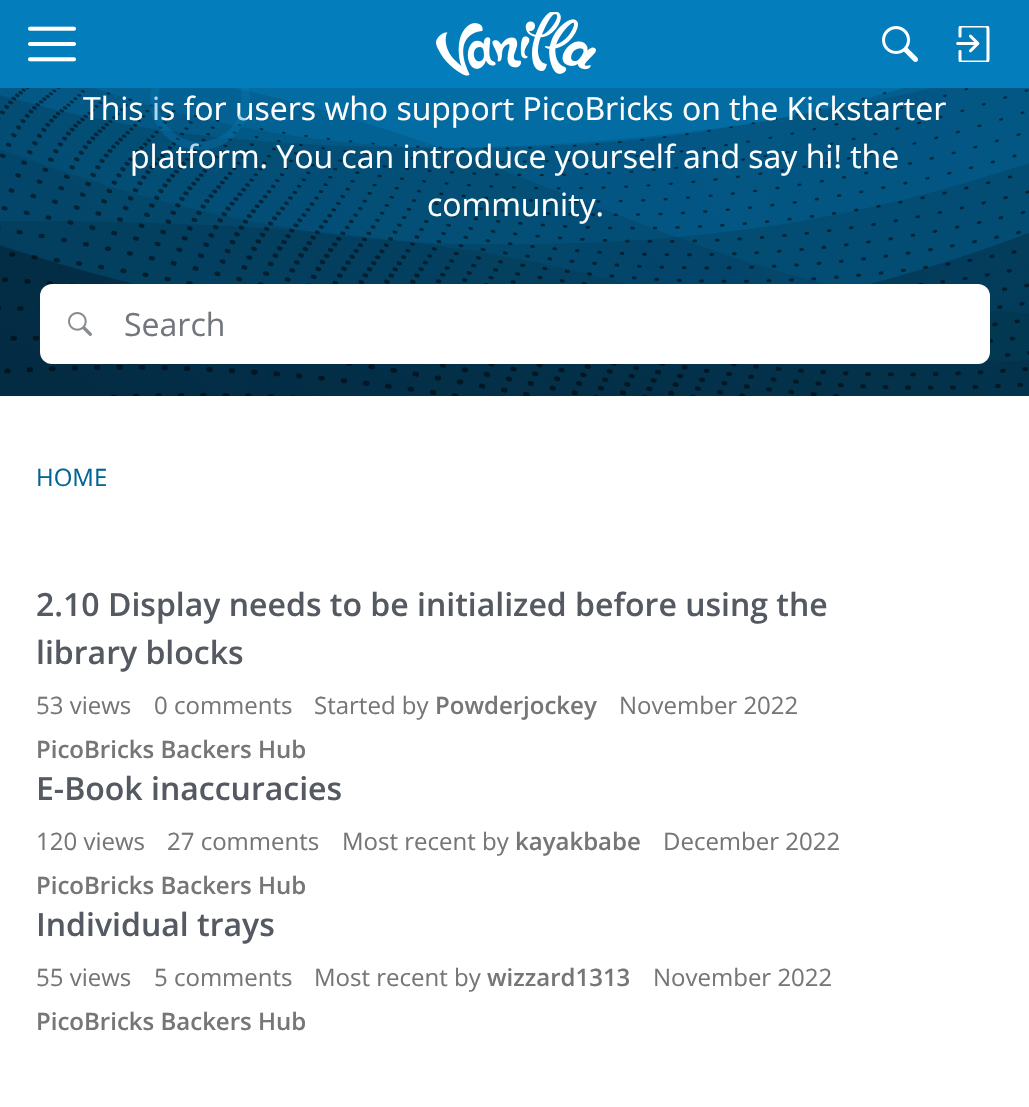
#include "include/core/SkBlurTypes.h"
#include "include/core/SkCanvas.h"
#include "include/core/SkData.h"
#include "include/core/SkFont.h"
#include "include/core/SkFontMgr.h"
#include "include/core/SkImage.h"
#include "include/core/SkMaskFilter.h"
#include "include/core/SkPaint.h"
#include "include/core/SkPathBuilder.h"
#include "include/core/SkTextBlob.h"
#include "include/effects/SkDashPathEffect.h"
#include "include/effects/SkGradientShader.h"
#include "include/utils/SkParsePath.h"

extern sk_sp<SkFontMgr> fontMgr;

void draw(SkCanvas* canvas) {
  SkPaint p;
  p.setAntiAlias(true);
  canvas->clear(SK_ColorWHITE);
  p.setColor(SkColorSetRGB(3, 125, 188));
  canvas->drawRect(SkRect::MakeLTRB(0, 0, 1029, 88), p);
  canvas->drawImageRect(SkImages::DeferredFromEncodedData(SkData::MakeFromFileName("images/1.png")), SkRect::MakeLTRB(28, 26, 76, 62), SkSamplingOptions());
  canvas->drawImageRect(SkImages::DeferredFromEncodedData(SkData::MakeFromFileName("images/2.png")), SkRect::MakeLTRB(436, 12, 596, 76), SkSamplingOptions());
  canvas->drawImageRect(SkImages::DeferredFromEncodedData(SkData::MakeFromFileName("images/3.png")), SkRect::MakeLTRB(882, 26, 918, 62), SkSamplingOptions());
  canvas->drawImageRect(SkImages::DeferredFromEncodedData(SkData::MakeFromFileName("images/4.png")), SkRect::MakeLTRB(956, 26, 990, 62), SkSamplingOptions());
  canvas->drawImageRect(SkImages::DeferredFromEncodedData(SkData::MakeFromFileName("images/5.png")), SkRect::MakeLTRB(0, 88, 1029, 396), SkSamplingOptions());
  p.setColor(SK_ColorWHITE);
  canvas->drawRoundRect(SkRect::MakeLTRB(40, 284, 990, 364), 12, 12, p);
  canvas->drawImageRect(SkImages::DeferredFromEncodedData(SkData::MakeFromFileName("images/6.png")), SkRect::MakeLTRB(68, 312, 92, 336), SkSamplingOptions());
  SkFont font1(fontMgr->matchFamilyStyle("Open Sans", SkFontStyle::Normal()), 32);
  font1.setSubpixel(true);
  canvas->drawString("This is for users who support PicoBricks on the Kickstarter", 83, 120, font1, p);
  canvas->drawString("platform. You can introduce yourself and say hi! the", 130, 168, font1, p);
  p.setStyle(SkPaint::kStroke_Style);
  p.setStrokeWidth(8);
  p.setColor(SkColorSetARGB(77, 3, 125, 188));
  canvas->drawPath(SkPathBuilder().moveTo(232.5f, 67.5f).cubicTo(241, 76, 246, 88, 246, 100).cubicTo(246, 140.5f, 196, 161.5f, 167.5f, 132.5f).cubicTo(161, 126, 156.5f, 118, 155, 109).cubicTo(152, 94, 156.5f, 78.5f, 167.5f, 67.5f).detach(), p);
  p.setStyle(SkPaint::kFill_Style);
  p.setColor(SK_ColorWHITE);
  canvas->drawString("community.", 427, 216, font1, p);
  p.setColor(SkColorSetRGB(114, 118, 125));
  canvas->drawString("Search", 124, 336, font1, p);
  SkFont font2(fontMgr->matchFamilyStyle("Open Sans", SkFontStyle::Normal()), 24);
  font2.setSubpixel(true);
  p.setColor(SkColorSetRGB(2, 100, 150));
  canvas->drawString("HOME", 36, 486, font2, p);
  SkFont font3(fontMgr->matchFamilyStyle("Open Sans", SkFontStyle(600, SkFontStyle::kNormal_Width, SkFontStyle::kUpright_Slant)), 32);
  font3.setSubpixel(true);
  p.setColor(SkColorSetRGB(85, 90, 98));
  canvas->drawString("2.10 Display needs to be initialized before using the", 36, 616, font3, p);
  canvas->drawString("library blocks", 36, 664, font3, p);
  p.setColor(SkColorSetRGB(118, 118, 118));
  canvas->drawString("53 views", 36, 714, font2, p);
  canvas->drawString("0 comments", 154, 714, font2, p);
  canvas->drawString("Started by", 314, 714, font2, p);
  SkFont font4(fontMgr->matchFamilyStyle("Open Sans", SkFontStyle(600, SkFontStyle::kNormal_Width, SkFontStyle::kUpright_Slant)), 24);
  font4.setSubpixel(true);
  canvas->drawString("Powderjockey", 435, 714, font4, p);
  canvas->drawString("November 2022", 619, 714, font2, p);
  canvas->drawString("PicoBricks Backers Hub", 36, 758, font4, p);
  p.setColor(SkColorSetRGB(85, 90, 98));
  canvas->drawString("E-Book inaccuracies", 36, 800, font3, p);
  p.setColor(SkColorSetRGB(118, 118, 118));
  canvas->drawString("120 views", 36, 850, font2, p);
  canvas->drawString("27 comments", 167, 850, font2, p);
  canvas->drawString("Most recent by", 342, 850, font2, p);
  canvas->drawString("kayakbabe", 515, 850, font4, p);
  canvas->drawString("December 2022", 663, 850, font2, p);
  canvas->drawString("PicoBricks Backers Hub", 36, 894, font4, p);
  p.setColor(SkColorSetRGB(85, 90, 98));
  canvas->drawString("Individual trays", 36, 936, font3, p);
  p.setColor(SkColorSetRGB(118, 118, 118));
  canvas->drawString("55 views", 36, 986, font2, p);
  canvas->drawString("5 comments", 154, 986, font2, p);
  canvas->drawString("Most recent by", 314, 986, font2, p);
  canvas->drawString("wizzard1313", 487, 986, font4, p);
  canvas->drawString("November 2022", 653, 986, font2, p);
  canvas->drawString("PicoBricks Backers Hub", 36, 1030, font4, p);
}
